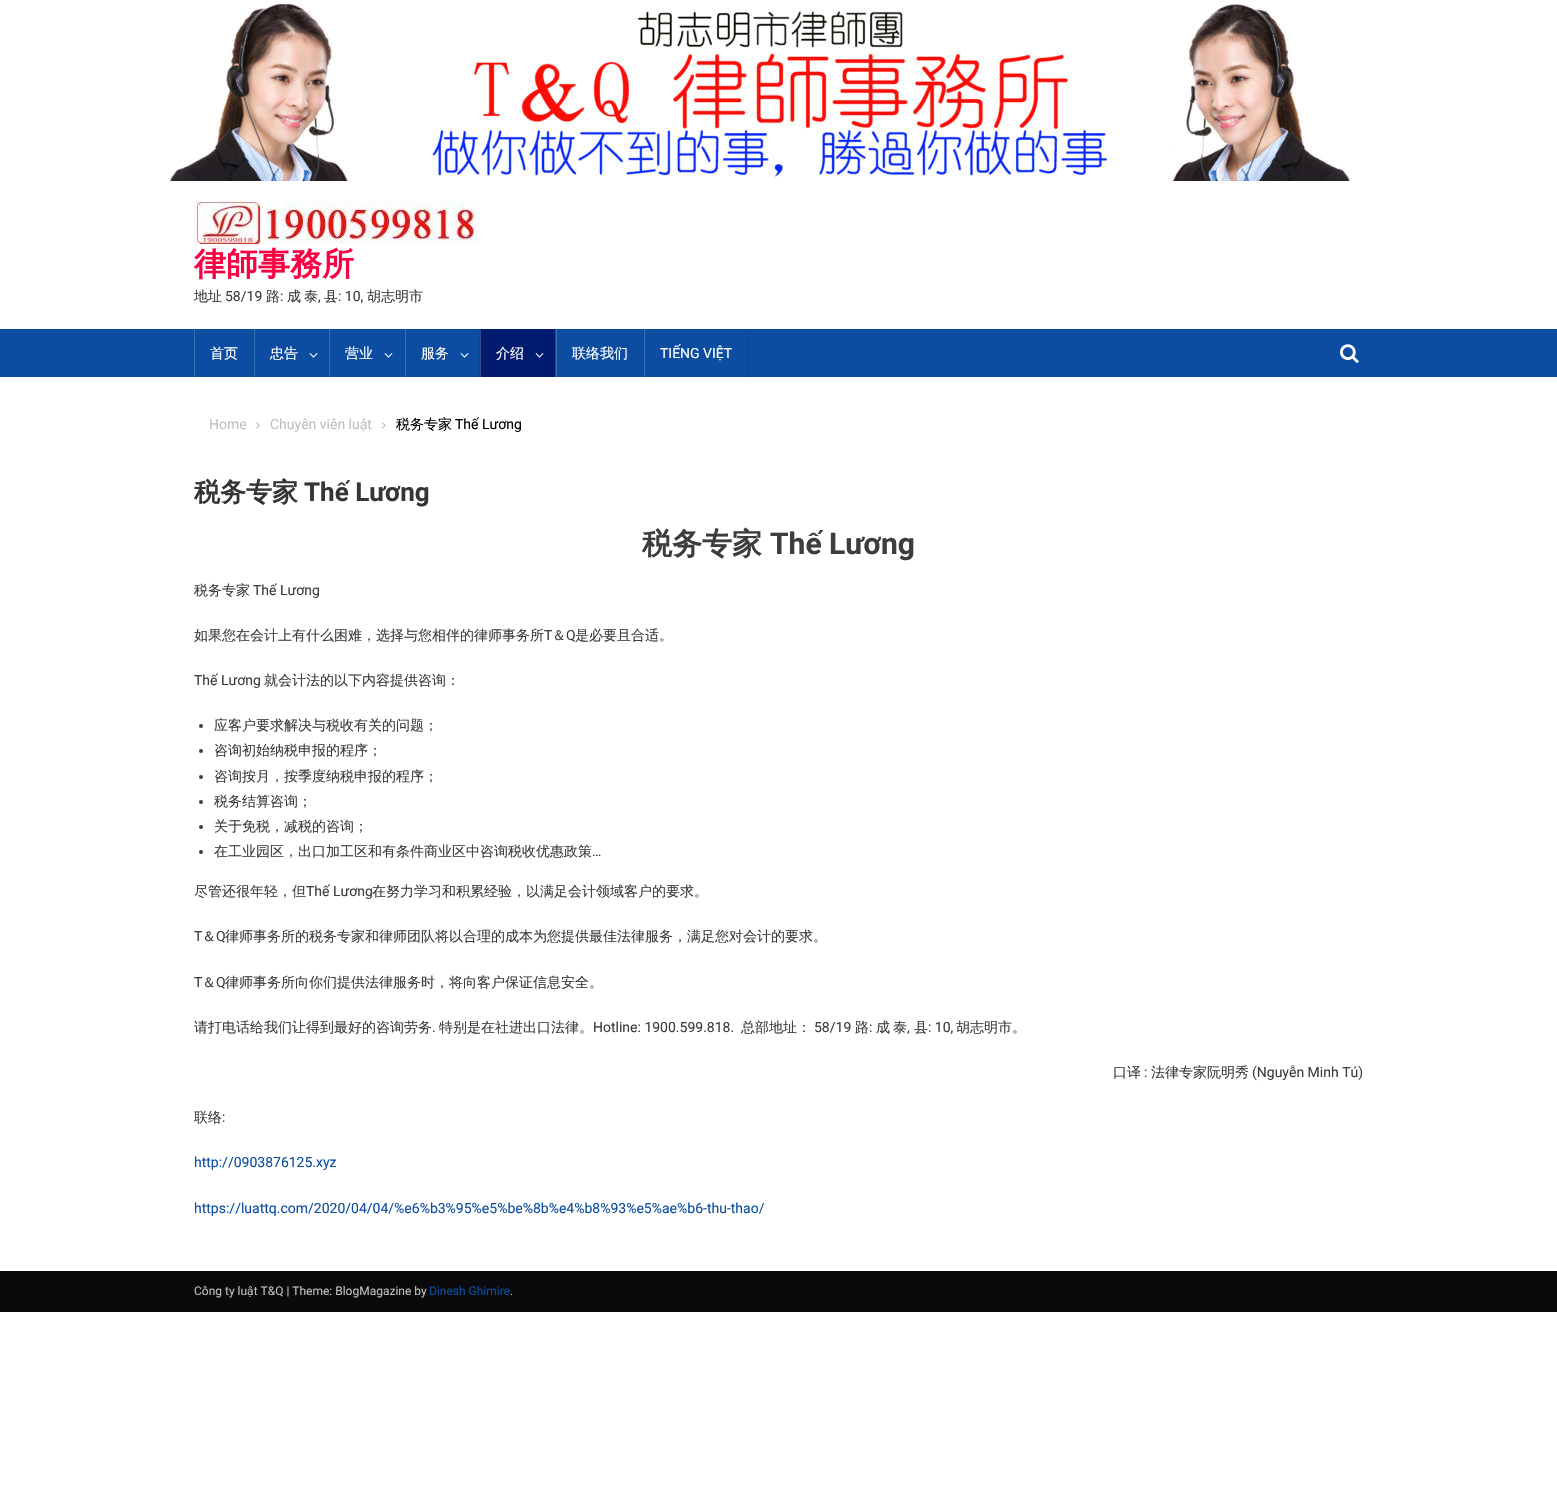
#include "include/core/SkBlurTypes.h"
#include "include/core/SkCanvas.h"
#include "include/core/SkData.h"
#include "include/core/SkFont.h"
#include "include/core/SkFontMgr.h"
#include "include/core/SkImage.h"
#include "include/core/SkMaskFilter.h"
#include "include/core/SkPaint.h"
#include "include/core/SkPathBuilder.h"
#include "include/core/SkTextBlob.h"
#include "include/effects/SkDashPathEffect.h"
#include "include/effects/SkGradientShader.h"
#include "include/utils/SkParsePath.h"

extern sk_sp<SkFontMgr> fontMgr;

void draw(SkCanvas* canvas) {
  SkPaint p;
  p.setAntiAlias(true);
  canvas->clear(SK_ColorWHITE);
  canvas->drawImageRect(SkImages::DeferredFromEncodedData(SkData::MakeFromFileName("images/1.png")), SkRect::MakeLTRB(168, 0, 1352, 181), SkSamplingOptions());
  canvas->drawImageRect(SkImages::DeferredFromEncodedData(SkData::MakeFromFileName("images/2.png")), SkRect::MakeLTRB(194, 201, 478, 244), SkSamplingOptions());
  p.setColor(SkColorSetRGB(12, 77, 162));
  canvas->drawRect(SkRect::MakeLTRB(0, 329, 1557, 377), p);
  p.setColor(SkColorSetRGB(11, 71, 149));
  canvas->drawRect(SkRect::MakeLTRB(253, 329, 254, 377), p);
  p.setColor(SkColorSetRGB(61, 113, 181));
  canvas->drawRect(SkRect::MakeLTRB(194, 329, 195, 377), p);
  p.setColor(SkColorSetRGB(11, 71, 149));
  canvas->drawRect(SkRect::MakeLTRB(328, 329, 329, 377), p);
  p.setColor(SkColorSetRGB(61, 113, 181));
  canvas->drawRect(SkRect::MakeLTRB(254, 329, 255, 377), p);
  canvas->drawImageRect(SkImages::DeferredFromEncodedData(SkData::MakeFromFileName("images/3.png")), SkRect::MakeLTRB(309, 353, 318, 358), SkSamplingOptions());
  p.setColor(SkColorSetRGB(11, 71, 149));
  canvas->drawRect(SkRect::MakeLTRB(403, 329, 404, 377), p);
  p.setColor(SkColorSetRGB(61, 113, 181));
  canvas->drawRect(SkRect::MakeLTRB(329, 329, 330, 377), p);
  canvas->drawImageRect(SkImages::DeferredFromEncodedData(SkData::MakeFromFileName("images/3.png")), SkRect::MakeLTRB(384, 353, 393, 358), SkSamplingOptions());
  p.setColor(SkColorSetRGB(11, 71, 149));
  canvas->drawRect(SkRect::MakeLTRB(479, 329, 480, 377), p);
  p.setColor(SkColorSetRGB(61, 113, 181));
  canvas->drawRect(SkRect::MakeLTRB(405, 329, 406, 377), p);
  canvas->drawImageRect(SkImages::DeferredFromEncodedData(SkData::MakeFromFileName("images/3.png")), SkRect::MakeLTRB(460, 353, 469, 358), SkSamplingOptions());
  p.setColor(SkColorSetRGB(0, 27, 112));
  canvas->drawRect(SkRect::MakeLTRB(481, 329, 554, 377), p);
  p.setColor(SkColorSetRGB(0, 25, 103));
  canvas->drawRect(SkRect::MakeLTRB(554, 329, 555, 377), p);
  p.setColor(SkColorSetRGB(51, 73, 141));
  canvas->drawRect(SkRect::MakeLTRB(480, 329, 481, 377), p);
  canvas->drawImageRect(SkImages::DeferredFromEncodedData(SkData::MakeFromFileName("images/4.png")), SkRect::MakeLTRB(535, 353, 544, 358), SkSamplingOptions());
  p.setColor(SkColorSetRGB(11, 71, 149));
  canvas->drawRect(SkRect::MakeLTRB(643, 329, 644, 377), p);
  p.setColor(SkColorSetRGB(61, 113, 181));
  canvas->drawRect(SkRect::MakeLTRB(556, 329, 557, 377), p);
  p.setColor(SkColorSetRGB(11, 71, 149));
  canvas->drawRect(SkRect::MakeLTRB(748, 329, 749, 377), p);
  p.setColor(SkColorSetRGB(61, 113, 181));
  canvas->drawRect(SkRect::MakeLTRB(644, 329, 645, 377), p);
  canvas->drawImageRect(SkImages::DeferredFromEncodedData(SkData::MakeFromFileName("images/5.png")), SkRect::MakeLTRB(1340, 344, 1359, 363), SkSamplingOptions());
  canvas->drawImageRect(SkImages::DeferredFromEncodedData(SkData::MakeFromFileName("images/6.png")), SkRect::MakeLTRB(256, 422, 260, 429), SkSamplingOptions());
  canvas->drawImageRect(SkImages::DeferredFromEncodedData(SkData::MakeFromFileName("images/6.png")), SkRect::MakeLTRB(382, 422, 386, 429), SkSamplingOptions());
  p.setColor(SkColorSetRGB(61, 61, 61));
  canvas->drawCircle(201, 726, 2, p);
  canvas->drawCircle(201, 751, 2, p);
  canvas->drawCircle(201, 777, 2, p);
  canvas->drawCircle(201, 802, 2, p);
  canvas->drawCircle(201, 827, 2, p);
  canvas->drawCircle(201, 852, 2, p);
  p.setColor(SkColorSetRGB(10, 10, 12));
  canvas->drawRect(SkRect::MakeLTRB(0, 1271, 1557, 1312), p);
  SkFont font1(fontMgr->matchFamilyStyle("WenQuanYi Zen Hei", SkFontStyle::Bold()), 32);
  font1.setSubpixel(true);
  p.setColor(SkColorSetRGB(249, 0, 66));
  canvas->drawString("律師事務所", 194, 275, font1, p);
  SkFont font2(fontMgr->matchFamilyStyle("WenQuanYi Zen Hei", SkFontStyle(500, SkFontStyle::kNormal_Width, SkFontStyle::kUpright_Slant)), 14);
  font2.setSubpixel(true);
  p.setColor(SkColorSetRGB(61, 61, 61));
  canvas->drawString("地址", 194, 301, font2, p);
  SkFont font3(fontMgr->matchFamilyStyle("Roboto", SkFontStyle::Normal()), 14);
  font3.setSubpixel(true);
  canvas->drawString("58/19", 225, 301, font3, p);
  canvas->drawString("路", 266, 301, font2, p);
  canvas->drawString(":", 280, 301, font3, p);
  canvas->drawString("成", 287, 301, font2, p);
  canvas->drawString("泰", 304, 301, font2, p);
  canvas->drawString(",", 318, 301, font3, p);
  canvas->drawString("县", 324, 301, font2, p);
  canvas->drawString(": 10,", 338, 301, font3, p);
  canvas->drawString("胡志明市", 367, 301, font2, p);
  p.setColor(SK_ColorWHITE);
  canvas->drawString("首页", 210, 358, font2, p);
  canvas->drawString("忠告", 270, 358, font2, p);
  canvas->drawString("营业", 345, 358, font2, p);
  canvas->drawString("服务", 421, 358, font2, p);
  canvas->drawString("介绍", 496, 358, font2, p);
  canvas->drawString("联络我们", 572, 358, font2, p);
  canvas->drawString("TIẾNG VIỆT", 660, 358, font3, p);
  p.setColor(SkColorSetRGB(191, 191, 191));
  canvas->drawString("Home", 209, 429, font3, p);
  canvas->drawString("Chuyên viên luật", 270, 429, font3, p);
  p.setColor(SK_ColorBLACK);
  canvas->drawString("税务专家", 396, 429, font2, p);
  canvas->drawString("Thế Lương", 455, 429, font3, p);
  SkFont font4(fontMgr->matchFamilyStyle("WenQuanYi Zen Hei", SkFontStyle::Bold()), 26);
  font4.setSubpixel(true);
  p.setColor(SkColorSetRGB(53, 53, 53));
  canvas->drawString("税务专家", 194, 501, font4, p);
  SkFont font5(fontMgr->matchFamilyStyle("Roboto", SkFontStyle::Bold()), 26);
  font5.setSubpixel(true);
  canvas->drawString("Thế Lương", 304, 501, font5, p);
  SkFont font6(fontMgr->matchFamilyStyle("WenQuanYi Zen Hei", SkFontStyle::Bold()), 30);
  font6.setSubpixel(true);
  p.setColor(SkColorSetRGB(61, 61, 61));
  canvas->drawString("税务专家", 642, 554, font6, p);
  SkFont font7(fontMgr->matchFamilyStyle("Roboto", SkFontStyle::Bold()), 30);
  font7.setSubpixel(true);
  canvas->drawString("Thế Lương", 770, 554, font7, p);
  canvas->drawString("税务专家", 194, 595, font2, p);
  canvas->drawString("Thế Lương", 253, 595, font3, p);
  canvas->drawString("如果您在会计上有什么困难，选择与您相伴的律师事务所", 194, 640, font2, p);
  canvas->drawString("T", 544, 640, font3, p);
  canvas->drawString("＆", 552, 640, font2, p);
  canvas->drawString("Q", 566, 640, font3, p);
  canvas->drawString("是必要且合适。", 575, 640, font2, p);
  canvas->drawString("Thế Lương", 194, 685, font3, p);
  canvas->drawString("就会计法的以下内容提供咨询：", 264, 685, font2, p);
  canvas->drawString("应客户要求解决与税收有关的问题；", 214, 730, font2, p);
  canvas->drawString("咨询初始纳税申报的程序；", 214, 755, font2, p);
  canvas->drawString("咨询按月，按季度纳税申报的程序；", 214, 781, font2, p);
  canvas->drawString("税务结算咨询；", 214, 806, font2, p);
  canvas->drawString("关于免税，减税的咨询；", 214, 831, font2, p);
  canvas->drawString("在工业园区，出口加工区和有条件商业区中咨询税收优惠政策", 214, 856, font2, p);
  canvas->drawString("…", 592, 856, font3, p);
  canvas->drawString("尽管还很年轻，但", 194, 896, font2, p);
  canvas->drawString("Thế Lương", 306, 896, font3, p);
  canvas->drawString("在努力学习和积累经验，以满足会计领域客户的要求。", 372, 896, font2, p);
  canvas->drawString("T", 194, 941, font3, p);
  canvas->drawString("＆", 202, 941, font2, p);
  canvas->drawString("Q", 216, 941, font3, p);
  canvas->drawString("律师事务所的税务专家和律师团队将以合理的成本为您提供最佳法律服务，满足您对会计的要求。", 225, 941, font2, p);
  canvas->drawString("T", 194, 987, font3, p);
  canvas->drawString("＆", 202, 987, font2, p);
  canvas->drawString("Q", 216, 987, font3, p);
  canvas->drawString("律师事务所向你们提供法律服务时，将向客户保证信息安全。", 225, 987, font2, p);
  canvas->drawString("请打电话给我们让得到最好的咨询劳务", 194, 1032, font2, p);
  canvas->drawString(".", 432, 1032, font3, p);
  canvas->drawString("特别是在社进出口法律。", 439, 1032, font2, p);
  canvas->drawString("Hotline: 1900.599.818.", 593, 1032, font3, p);
  canvas->drawString("总部地址：", 741, 1032, font2, p);
  canvas->drawString("58/19", 814, 1032, font3, p);
  canvas->drawString("路", 855, 1032, font2, p);
  canvas->drawString(":", 869, 1032, font3, p);
  canvas->drawString("成", 876, 1032, font2, p);
  canvas->drawString("泰", 893, 1032, font2, p);
  canvas->drawString(",", 907, 1032, font3, p);
  canvas->drawString("县", 914, 1032, font2, p);
  canvas->drawString(": 10,", 928, 1032, font3, p);
  canvas->drawString("胡志明市。", 956, 1032, font2, p);
  canvas->drawString("口译", 1113, 1077, font2, p);
  canvas->drawString(":", 1144, 1077, font3, p);
  canvas->drawString("法律专家阮明秀", 1151, 1077, font2, p);
  canvas->drawString("(Nguyễn Minh Tú)", 1252, 1077, font3, p);
  canvas->drawString("联络", 194, 1122, font2, p);
  canvas->drawString(":", 222, 1122, font3, p);
  p.setColor(SkColorSetRGB(12, 77, 162));
  canvas->drawString("http://0903876125.xyz", 194, 1167, font3, p);
  canvas->drawString("https://luattq.com/2020/04/04/%e6%b3%95%e5%be%8b%e4%b8%93%e5%ae%b6-thu-thao/", 194, 1213, font3, p);
  SkFont font8(fontMgr->matchFamilyStyle("Roboto", SkFontStyle::Normal()), 12);
  font8.setSubpixel(true);
  p.setColor(SkColorSetRGB(191, 191, 191));
  canvas->drawString("Công ty luật T&Q | Theme: BlogMagazine by", 194, 1295, font8, p);
  p.setColor(SkColorSetRGB(12, 77, 162));
  canvas->drawString("Dinesh Ghimire", 429, 1295, font8, p);
  p.setColor(SkColorSetRGB(191, 191, 191));
  canvas->drawString(".", 510, 1295, font8, p);
}
